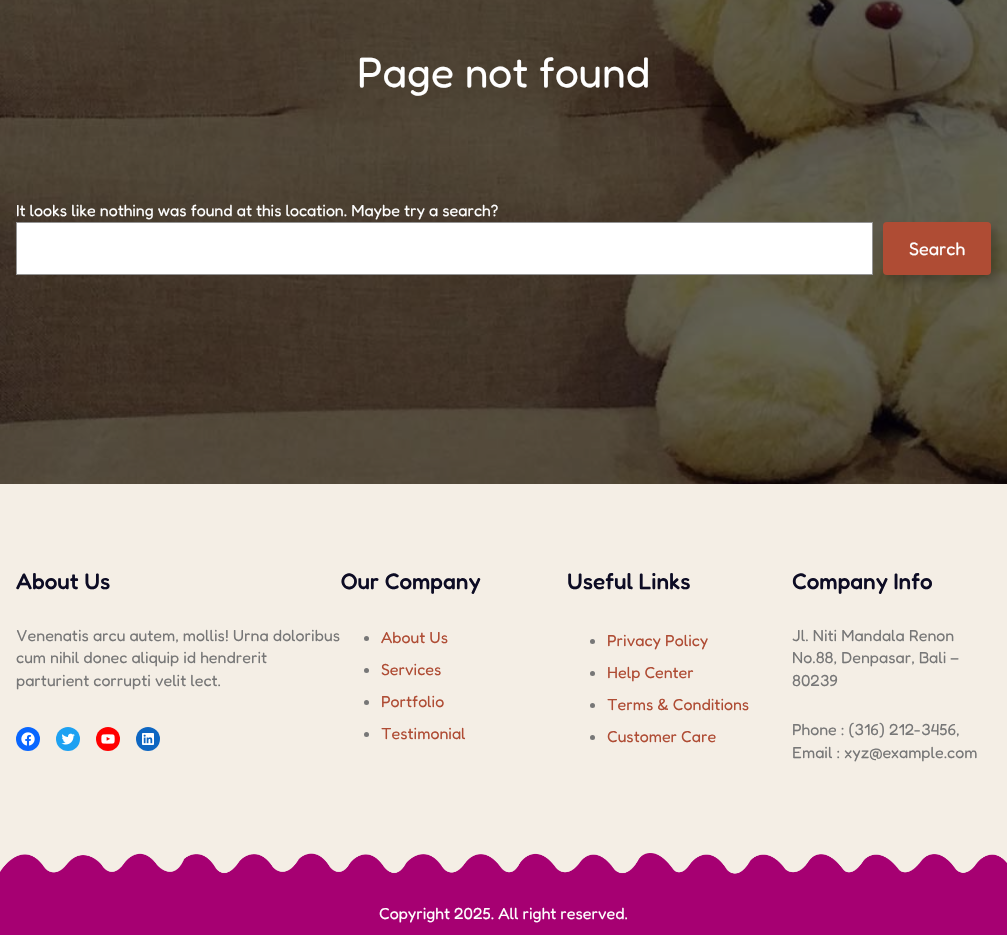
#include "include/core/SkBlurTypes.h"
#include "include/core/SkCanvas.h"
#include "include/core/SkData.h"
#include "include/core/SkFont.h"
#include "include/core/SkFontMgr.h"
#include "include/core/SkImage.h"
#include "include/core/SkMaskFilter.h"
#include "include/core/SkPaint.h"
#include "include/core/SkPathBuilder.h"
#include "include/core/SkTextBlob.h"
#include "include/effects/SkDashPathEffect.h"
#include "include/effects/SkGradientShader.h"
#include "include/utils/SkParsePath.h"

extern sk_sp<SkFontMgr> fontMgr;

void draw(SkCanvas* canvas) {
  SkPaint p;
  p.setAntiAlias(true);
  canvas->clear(SkColorSetRGB(166, 0, 114));
  canvas->drawImageRect(SkImages::DeferredFromEncodedData(SkData::MakeFromFileName("images/1.png")), SkRect::MakeLTRB(0, 0, 1007, 484), SkSamplingOptions());
  p.setColor(SK_ColorWHITE);
  canvas->drawRect(SkRect::MakeLTRB(16.5f, 222.5f, 872.5f, 274.5f), p);
  p.setStyle(SkPaint::kStroke_Style);
  p.setStrokeWidth(1);
  p.setColor(SkColorSetRGB(148, 148, 148));
  canvas->drawRect(SkRect::MakeLTRB(16.5f, 222.5f, 872.5f, 274.5f), p);
  p.setStyle(SkPaint::kFill_Style);
  p.setColor(SkColorSetARGB(51, 0, 0, 0));
  p.setMaskFilter(SkMaskFilter::MakeBlur(kNormal_SkBlurStyle, 4.5f));
  canvas->drawRoundRect(SkRect::MakeLTRB(889, 228, 997, 281), 4, 4, p);
  p.setMaskFilter(nullptr);
  p.setColor(SkColorSetRGB(175, 76, 52));
  canvas->drawRoundRect(SkRect::MakeLTRB(883, 222, 991, 275), 4, 4, p);
  p.setColor(SkColorSetRGB(244, 238, 229));
  canvas->drawRect(SkRect::MakeLTRB(0, 484, 1007, 874), p);
  p.setColor(SkColorSetRGB(8, 102, 255));
  canvas->drawCircle(28, 739, 12, p);
  canvas->drawImageRect(SkImages::DeferredFromEncodedData(SkData::MakeFromFileName("images/2.png")), SkRect::MakeLTRB(21, 732, 35, 746), SkSamplingOptions());
  p.setColor(SkColorSetRGB(29, 161, 242));
  canvas->drawCircle(68, 739, 12, p);
  canvas->drawImageRect(SkImages::DeferredFromEncodedData(SkData::MakeFromFileName("images/3.png")), SkRect::MakeLTRB(61, 733, 75, 745), SkSamplingOptions());
  p.setColor(SkColorSetRGB(255, 0, 0));
  canvas->drawCircle(108, 739, 12, p);
  canvas->drawImageRect(SkImages::DeferredFromEncodedData(SkData::MakeFromFileName("images/4.png")), SkRect::MakeLTRB(101, 734, 115, 744), SkSamplingOptions());
  p.setColor(SkColorSetRGB(13, 102, 194));
  canvas->drawCircle(148, 739, 12, p);
  canvas->drawImageRect(SkImages::DeferredFromEncodedData(SkData::MakeFromFileName("images/5.png")), SkRect::MakeLTRB(142, 733, 154, 745), SkSamplingOptions());
  p.setColor(SkColorSetRGB(119, 119, 119));
  canvas->drawCircle(366.5f, 638.5f, 2.5f, p);
  canvas->drawCircle(366.5f, 670.5f, 2.5f, p);
  canvas->drawCircle(366.5f, 702.5f, 2.5f, p);
  canvas->drawCircle(366.5f, 734.5f, 2.5f, p);
  canvas->drawCircle(592.5f, 641.5f, 2.5f, p);
  canvas->drawCircle(592.5f, 673.5f, 2.5f, p);
  canvas->drawCircle(592.5f, 705.5f, 2.5f, p);
  canvas->drawCircle(592.5f, 737.5f, 2.5f, p);
  canvas->drawImageRect(SkImages::DeferredFromEncodedData(SkData::MakeFromFileName("images/6.png")), SkRect::MakeLTRB(0, 853, 1007, 902), SkSamplingOptions());
  SkFont font1(fontMgr->matchFamilyStyle("Fredoka", SkFontStyle::Normal()), 42.5f);
  font1.setSubpixel(true);
  p.setColor(SK_ColorWHITE);
  canvas->drawString("Page not found", 357, 87, font1, p);
  SkFont font2(fontMgr->matchFamilyStyle("Fredoka", SkFontStyle::Normal()), 16);
  font2.setSubpixel(true);
  canvas->drawString("It looks like nothing was found at this location. Maybe try a search?", 16, 216, font2, p);
  SkFont font3(fontMgr->matchFamilyStyle("Fredoka", SkFontStyle::Normal()), 18);
  font3.setSubpixel(true);
  canvas->drawString("Search", 909, 255, font3, p);
  SkFont font4(fontMgr->matchFamilyStyle("Fredoka", SkFontStyle(500, SkFontStyle::kNormal_Width, SkFontStyle::kUpright_Slant)), 22.5f);
  font4.setSubpixel(true);
  p.setColor(SkColorSetRGB(13, 12, 36));
  canvas->drawString("About Us", 16, 589, font4, p);
  p.setColor(SkColorSetRGB(119, 119, 119));
  canvas->drawString("Venenatis arcu autem, mollis! Urna doloribus", 16, 641, font2, p);
  canvas->drawString("cum nihil donec aliquip id hendrerit", 16, 663, font2, p);
  canvas->drawString("parturient corrupti velit lect.", 16, 686, font2, p);
  p.setColor(SkColorSetRGB(13, 12, 36));
  canvas->drawString("Our Company", 341, 589, font4, p);
  p.setColor(SkColorSetRGB(175, 76, 52));
  canvas->drawString("About Us", 381, 643, font2, p);
  canvas->drawString("Services", 381, 675, font2, p);
  canvas->drawString("Portfolio", 381, 707, font2, p);
  canvas->drawString("Testimonial", 381, 739, font2, p);
  p.setColor(SkColorSetRGB(13, 12, 36));
  canvas->drawString("Useful Links", 567, 589, font4, p);
  p.setColor(SkColorSetRGB(175, 76, 52));
  canvas->drawString("Privacy Policy", 607, 646, font2, p);
  canvas->drawString("Help Center", 607, 678, font2, p);
  canvas->drawString("Terms & Conditions", 607, 710, font2, p);
  canvas->drawString("Customer Care", 607, 742, font2, p);
  p.setColor(SkColorSetRGB(13, 12, 36));
  canvas->drawString("Company Info", 792, 589, font4, p);
  p.setColor(SkColorSetRGB(119, 119, 119));
  canvas->drawString("Jl. Niti Mandala Renon", 792, 641, font2, p);
  canvas->drawString("No.88, Denpasar, Bali –", 792, 663, font2, p);
  canvas->drawString("80239", 792, 686, font2, p);
  canvas->drawString("Phone : (316) 212-3456,", 792, 735, font2, p);
  canvas->drawString("Email : xyz@example.com", 792, 758, font2, p);
  p.setColor(SK_ColorWHITE);
  canvas->drawString("Copyright 2025. All right reserved.", 379, 919, font2, p);
}
